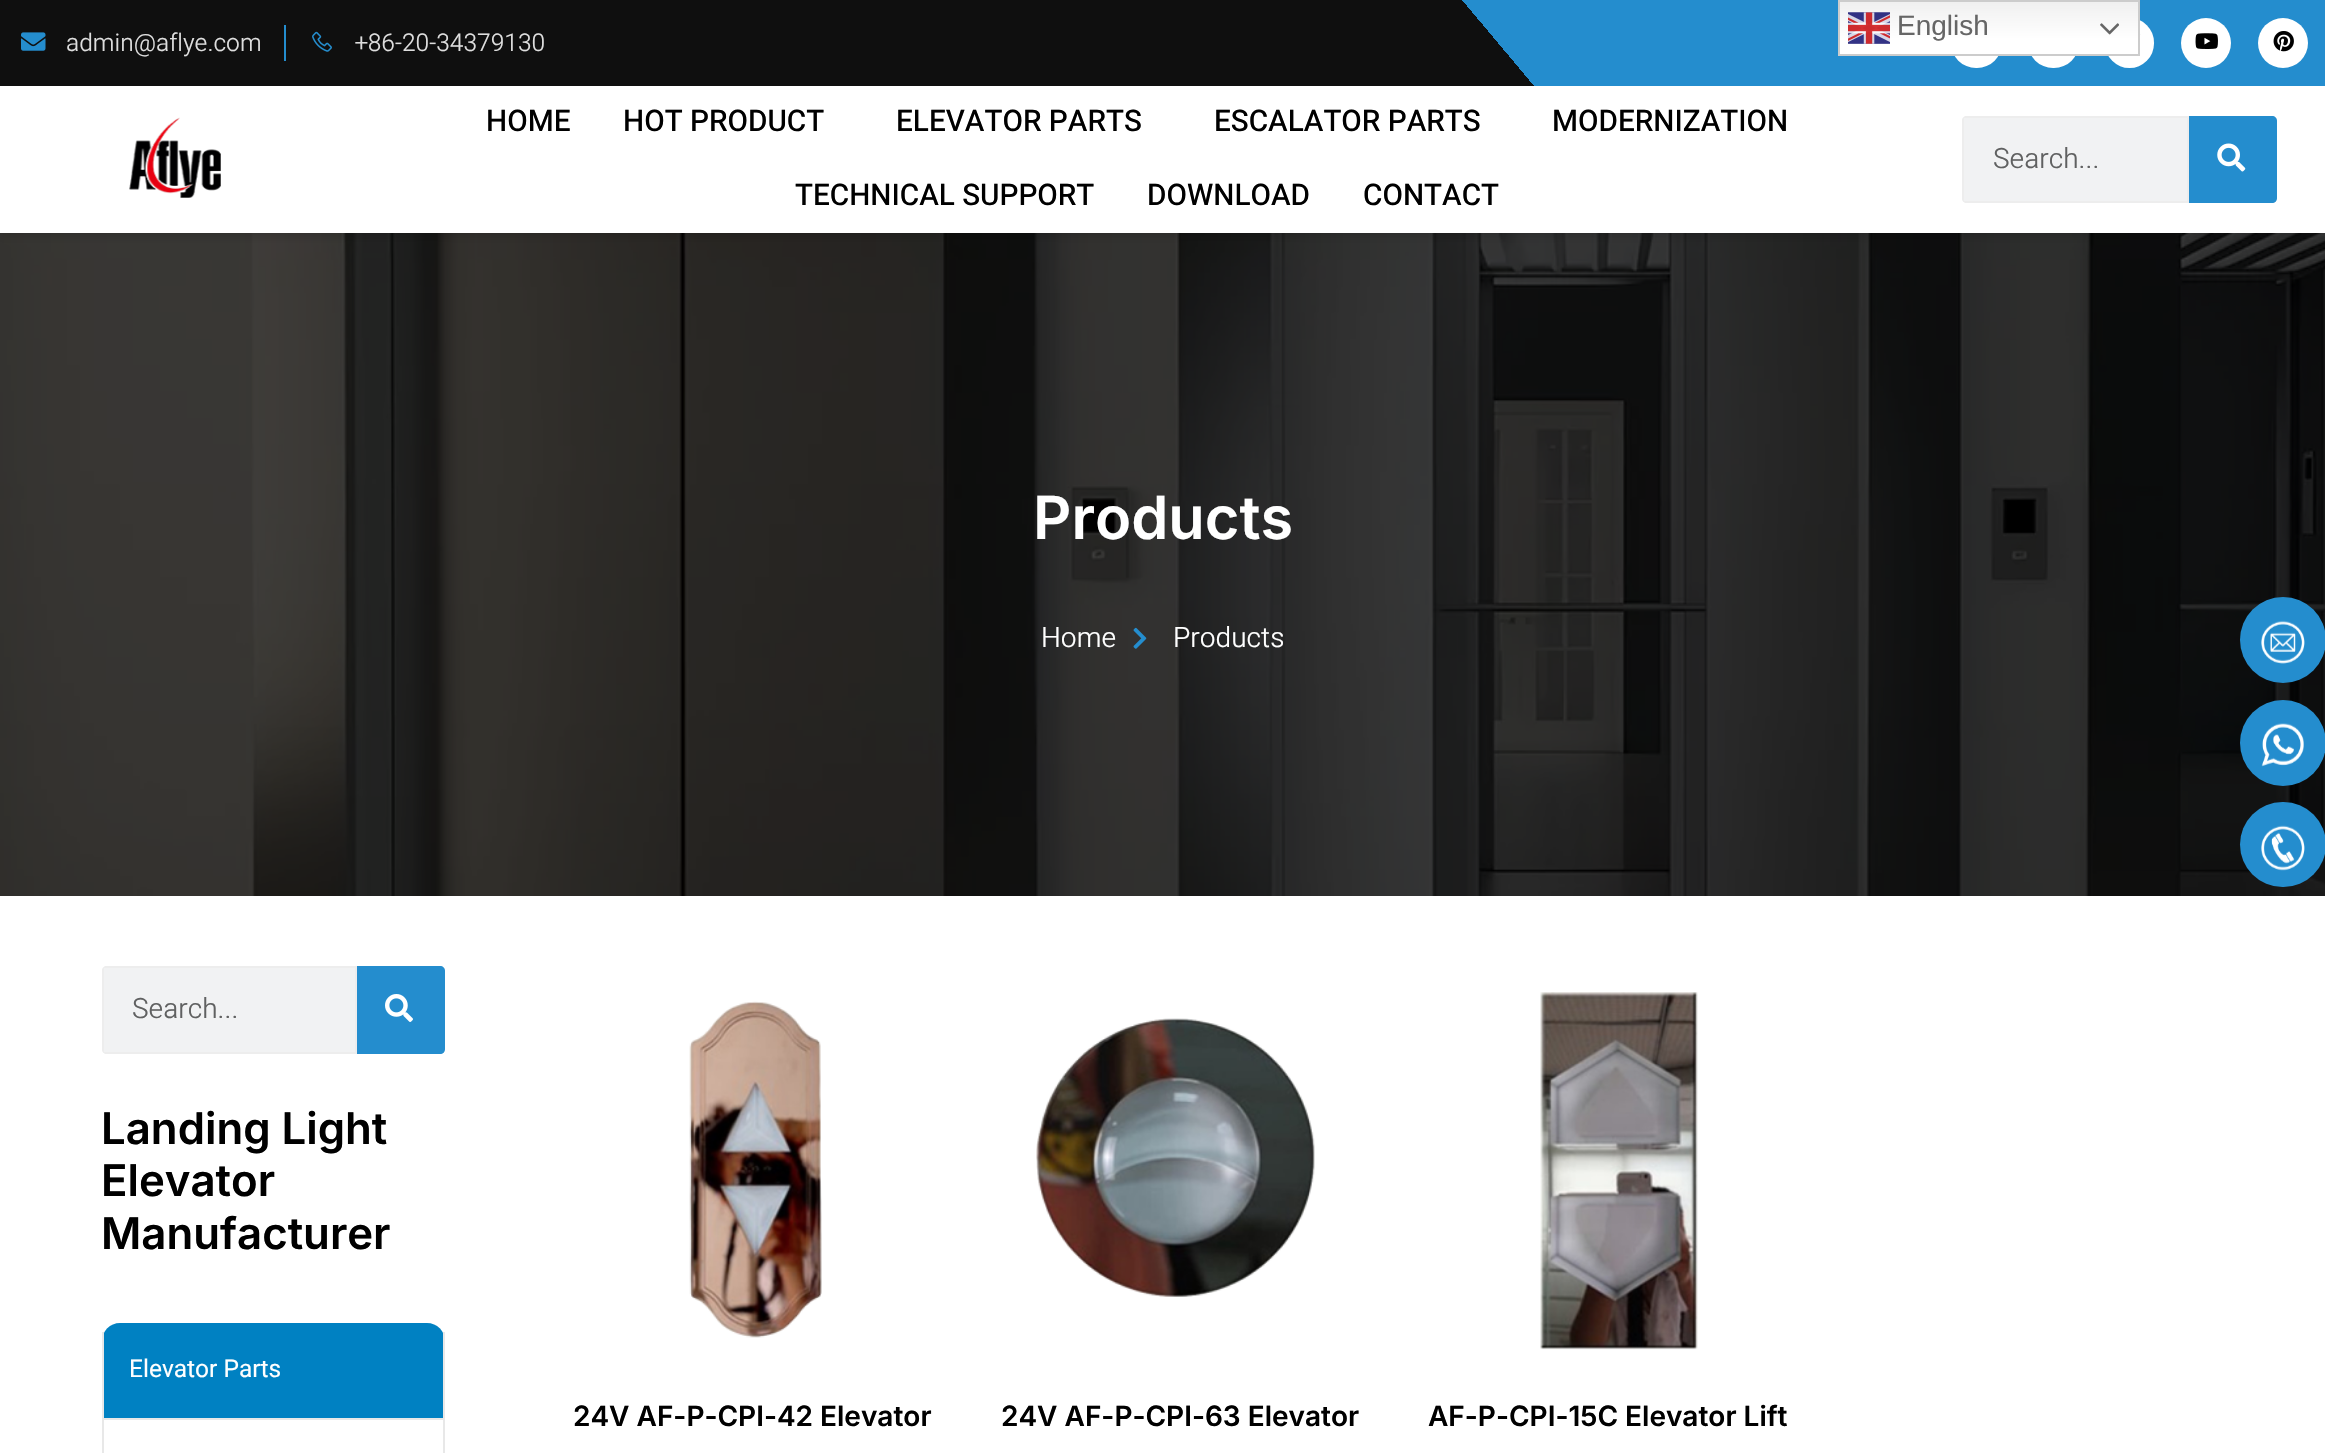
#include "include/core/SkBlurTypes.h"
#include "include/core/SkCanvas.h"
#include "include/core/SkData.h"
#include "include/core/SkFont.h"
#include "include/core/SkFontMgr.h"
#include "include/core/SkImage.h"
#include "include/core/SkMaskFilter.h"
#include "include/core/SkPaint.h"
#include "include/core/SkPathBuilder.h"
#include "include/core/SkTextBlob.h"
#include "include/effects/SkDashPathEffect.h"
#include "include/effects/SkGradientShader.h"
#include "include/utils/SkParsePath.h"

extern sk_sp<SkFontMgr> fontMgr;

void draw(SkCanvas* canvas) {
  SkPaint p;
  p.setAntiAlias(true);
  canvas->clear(SK_ColorWHITE);
  canvas->drawImageRect(SkImages::DeferredFromEncodedData(SkData::MakeFromFileName("images/10.png")), SkRect::MakeLTRB(0, 233, 2325, 896), SkSamplingOptions());
  p.setColor(SkColorSetARGB(38, 0, 0, 0));
  p.setMaskFilter(SkMaskFilter::MakeBlur(kNormal_SkBlurStyle, 4.5f));
  canvas->drawRect(SkRect::MakeLTRB(0, 89, 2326, 236), p);
  p.setMaskFilter(nullptr);
  {
    const SkColor colors[] = {SkColorSetRGB(15, 15, 15), SkColorSetRGB(36, 141, 206)};
    const float stops[] = {0.64f, 0.64f};
    const SkPoint ends[] = {{459, 633}, {1866, -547}};
    p.setShader(SkGradientShader::MakeLinear(ends, colors, stops, 2, SkTileMode::kClamp));
    p.setAlpha(255);
  }
  canvas->drawRect(SkRect::MakeLTRB(0, 0, 2325, 86), p);
  p.setShader(nullptr);
  p.setColor(SK_ColorWHITE);
  canvas->drawRoundRect(SkRect::MakeLTRB(1951, 18, 2002, 68), 25, 25, p);
  canvas->drawRoundRect(SkRect::MakeLTRB(2028, 18, 2079, 68), 25, 25, p);
  canvas->drawRoundRect(SkRect::MakeLTRB(2105, 18, 2154, 68), 24.5f, 24.5f, p);
  {
    const SkColor colors[] = {SkColorSetRGB(239, 239, 239), SK_ColorWHITE};
    const float stops[] = {0, 0.7f};
    const SkPoint ends[] = {{1989, 0}, {1989, 56}};
    p.setShader(SkGradientShader::MakeLinear(ends, colors, stops, 2, SkTileMode::kClamp));
    p.setAlpha(255);
  }
  canvas->drawRect(SkRect::MakeLTRB(1840, 2, 2138, 54), p);
  p.setStyle(SkPaint::kStroke_Style);
  p.setStrokeWidth(2);
  p.setShader(nullptr);
  p.setColor(SkColorSetRGB(204, 204, 204));
  canvas->drawRect(SkRect::MakeLTRB(1839, 1, 2139, 55), p);
  canvas->drawImageRect(SkImages::DeferredFromEncodedData(SkData::MakeFromFileName("images/1.png")), SkRect::MakeLTRB(1848, 12, 1890, 44), SkSamplingOptions());
  canvas->drawImageRect(SkImages::DeferredFromEncodedData(SkData::MakeFromFileName("images/2.png")), SkRect::MakeLTRB(2100, 23, 2119, 35), SkSamplingOptions());
  canvas->drawImageRect(SkImages::DeferredFromEncodedData(SkData::MakeFromFileName("images/3.png")), SkRect::MakeLTRB(21, 32, 46, 51), SkSamplingOptions());
  p.setStyle(SkPaint::kFill_Style);
  p.setColor(SkColorSetRGB(36, 141, 206));
  canvas->drawRect(SkRect::MakeLTRB(284, 25, 286, 61), p);
  canvas->drawImageRect(SkImages::DeferredFromEncodedData(SkData::MakeFromFileName("images/4.png")), SkRect::MakeLTRB(312, 31, 332, 52), SkSamplingOptions());
  canvas->drawImageRect(SkImages::DeferredFromEncodedData(SkData::MakeFromFileName("images/5.png")), SkRect::MakeLTRB(2140, 34, 2141, 35), SkSamplingOptions());
  p.setColor(SK_ColorWHITE);
  canvas->drawCircle(2206, 43, 25, p);
  canvas->drawImageRect(SkImages::DeferredFromEncodedData(SkData::MakeFromFileName("images/6.png")), SkRect::MakeLTRB(2195, 33, 2218, 49), SkSamplingOptions());
  canvas->drawCircle(2283, 43, 25, p);
  canvas->drawImageRect(SkImages::DeferredFromEncodedData(SkData::MakeFromFileName("images/7.png")), SkRect::MakeLTRB(2273, 31, 2294, 52), SkSamplingOptions());
  canvas->drawRect(SkRect::MakeLTRB(0, 86, 2325, 233), p);
  canvas->drawImageRect(SkImages::DeferredFromEncodedData(SkData::MakeFromFileName("images/8.png")), SkRect::MakeLTRB(129, 117, 221, 198), SkSamplingOptions());
  p.setColor(SkColorSetRGB(241, 242, 243));
  canvas->drawRoundRect(SkRect::MakeLTRB(1962, 116, 2277, 203), 5, 5, p);
  p.setColor(SkColorSetRGB(237, 237, 237));
  canvas->drawPath(SkPathBuilder(SkPathFillType::kEvenOdd).moveTo(1967, 116).cubicTo(1964, 116, 1962, 118, 1962, 121).lineTo(1962, 198).cubicTo(1962, 201, 1964, 203, 1967, 203).lineTo(2189, 203).lineTo(2189, 116).close().moveTo(1964, 118).lineTo(1964, 201).lineTo(2187, 201).lineTo(2187, 118).close().detach(), p);
  p.setColor(SkColorSetRGB(36, 141, 206));
  canvas->drawPath(SkPathBuilder().moveTo(2189, 116).lineTo(2272, 116).cubicTo(2275, 116, 2277, 118, 2277, 121).lineTo(2277, 198).cubicTo(2277, 201, 2275, 203, 2272, 203).lineTo(2189, 203).close().detach(), p);
  canvas->drawImageRect(SkImages::DeferredFromEncodedData(SkData::MakeFromFileName("images/9.png")), SkRect::MakeLTRB(2217, 143, 2246, 172), SkSamplingOptions());
  canvas->drawImageRect(SkImages::DeferredFromEncodedData(SkData::MakeFromFileName("images/11.png")), SkRect::MakeLTRB(1133, 627, 1147, 649), SkSamplingOptions());
  p.setColor(SkColorSetRGB(241, 242, 243));
  canvas->drawRoundRect(SkRect::MakeLTRB(102, 966, 445, 1054), 5, 5, p);
  p.setColor(SkColorSetRGB(237, 237, 237));
  canvas->drawPath(SkPathBuilder(SkPathFillType::kEvenOdd).moveTo(107, 966).cubicTo(104, 966, 102, 968, 102, 971).lineTo(102, 1049).cubicTo(102, 1052, 104, 1054, 107, 1054).lineTo(357, 1054).lineTo(357, 966).close().moveTo(104, 968).lineTo(104, 1052).lineTo(355, 1052).lineTo(355, 968).close().detach(), p);
  p.setColor(SkColorSetRGB(36, 141, 206));
  canvas->drawPath(SkPathBuilder().moveTo(357, 966).lineTo(440, 966).cubicTo(443, 966, 445, 968, 445, 971).lineTo(445, 1049).cubicTo(445, 1052, 443, 1054, 440, 1054).lineTo(357, 1054).close().detach(), p);
  canvas->drawImageRect(SkImages::DeferredFromEncodedData(SkData::MakeFromFileName("images/12.png")), SkRect::MakeLTRB(385, 994, 413, 1022), SkSamplingOptions());
  p.setColor(SkColorSetRGB(0, 129, 194));
  canvas->drawPath(SkPathBuilder().moveTo(120, 1323).lineTo(427, 1323).cubicTo(437, 1323, 445, 1331, 445, 1341).lineTo(445, 1419).lineTo(102, 1419).lineTo(102, 1341).cubicTo(102, 1331, 110, 1323, 120, 1323).close().detach(), p);
  p.setColor(SkColorSetRGB(232, 232, 232));
  canvas->drawRect(SkRect::MakeLTRB(443, 1332, 445, 1419), p);
  canvas->drawRect(SkRect::MakeLTRB(102, 1418, 445, 1420), p);
  canvas->drawRect(SkRect::MakeLTRB(102, 1332, 104, 1453), p);
  canvas->drawRect(SkRect::MakeLTRB(443, 1419, 445, 1453), p);
  canvas->drawImageRect(SkImages::DeferredFromEncodedData(SkData::MakeFromFileName("images/13.png")), SkRect::MakeLTRB(689, 1001, 822, 1338), SkSamplingOptions());
  canvas->drawImageRect(SkImages::DeferredFromEncodedData(SkData::MakeFromFileName("images/14.png")), SkRect::MakeLTRB(1036, 1018, 1315, 1297), SkSamplingOptions());
  canvas->drawImageRect(SkImages::DeferredFromEncodedData(SkData::MakeFromFileName("images/15.png")), SkRect::MakeLTRB(1540, 992, 1698, 1350), SkSamplingOptions());
  p.setColor(SkColorSetRGB(36, 141, 206));
  canvas->drawCircle(2283, 640, 43, p);
  canvas->drawImageRect(SkImages::DeferredFromEncodedData(SkData::MakeFromFileName("images/16.png")), SkRect::MakeLTRB(2261, 620, 2305, 664), SkSamplingOptions());
  canvas->drawCircle(2283, 743, 43, p);
  canvas->drawImageRect(SkImages::DeferredFromEncodedData(SkData::MakeFromFileName("images/17.png")), SkRect::MakeLTRB(2261, 723, 2304, 767), SkSamplingOptions());
  canvas->drawRoundRect(SkRect::MakeLTRB(2240, 802, 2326, 887), 42.5f, 42.5f, p);
  canvas->drawImageRect(SkImages::DeferredFromEncodedData(SkData::MakeFromFileName("images/18.png")), SkRect::MakeLTRB(2261, 825, 2305, 871), SkSamplingOptions());
  SkFont font1(fontMgr->matchFamilyStyle("Liberation Sans", SkFontStyle::Normal()), 28);
  font1.setSubpixel(true);
  p.setColor(SkColorSetRGB(102, 102, 102));
  canvas->drawString("English", 1897, 35, font1, p);
  SkFont font2(fontMgr->matchFamilyStyle("Heebo", SkFontStyle(300, SkFontStyle::kNormal_Width, SkFontStyle::kUpright_Slant)), 24.5f);
  font2.setSubpixel(true);
  p.setColor(SkColorSetRGB(222, 222, 222));
  canvas->drawString("admin@aflye.com", 66, 51, font2, p);
  canvas->drawString("+86-20-34379130", 355, 51, font2, p);
  SkFont font3(fontMgr->matchFamilyStyle("Heebo", SkFontStyle(500, SkFontStyle::kNormal_Width, SkFontStyle::kUpright_Slant)), 29.75f);
  font3.setSubpixel(true);
  p.setColor(SK_ColorBLACK);
  canvas->drawString("HOME", 486, 131, font3, p);
  canvas->drawString("HOT PRODUCT", 623, 131, font3, p);
  canvas->drawString("ELEVATOR PARTS", 896, 131, font3, p);
  canvas->drawString("ESCALATOR PARTS", 1214, 131, font3, p);
  canvas->drawString("MODERNIZATION", 1552, 131, font3, p);
  canvas->drawString("TECHNICAL SUPPORT", 795, 205, font3, p);
  canvas->drawString("DOWNLOAD", 1147, 205, font3, p);
  canvas->drawString("CONTACT", 1363, 205, font3, p);
  SkFont font4(fontMgr->matchFamilyStyle("Heebo", SkFontStyle(300, SkFontStyle::kNormal_Width, SkFontStyle::kUpright_Slant)), 28);
  font4.setSubpixel(true);
  p.setColor(SkColorSetRGB(96, 97, 97));
  canvas->drawString("Search...", 1993, 168, font4, p);
  SkFont font5(fontMgr->matchFamilyStyle("Inter", SkFontStyle(600, SkFontStyle::kNormal_Width, SkFontStyle::kUpright_Slant)), 59.5f);
  font5.setSubpixel(true);
  p.setColor(SK_ColorWHITE);
  canvas->drawString("Products", 1033, 539, font5, p);
  canvas->drawString("Home", 1041, 647, font4, p);
  canvas->drawString("Products", 1173, 647, font4, p);
  p.setColor(SkColorSetRGB(96, 97, 97));
  canvas->drawString("Search...", 132, 1018, font4, p);
  SkFont font6(fontMgr->matchFamilyStyle("Inter", SkFontStyle(600, SkFontStyle::kNormal_Width, SkFontStyle::kUpright_Slant)), 43.75f);
  font6.setSubpixel(true);
  p.setColor(SK_ColorBLACK);
  canvas->drawString("Landing Light", 101, 1144, font6, p);
  canvas->drawString("Elevator", 101, 1196, font6, p);
  canvas->drawString("Manufacturer", 101, 1249, font6, p);
  SkFont font7(fontMgr->matchFamilyStyle("Heebo", SkFontStyle::Normal()), 24.5f);
  font7.setSubpixel(true);
  p.setColor(SK_ColorWHITE);
  canvas->drawString("Elevator Parts", 129, 1377, font7, p);
  SkFont font8(fontMgr->matchFamilyStyle("Inter", SkFontStyle(600, SkFontStyle::kNormal_Width, SkFontStyle::kUpright_Slant)), 28);
  font8.setSubpixel(true);
  p.setColor(SK_ColorBLACK);
  canvas->drawString("24V AF-P-CPI-42 Elevator", 573, 1426, font8, p);
  canvas->drawString("24V AF-P-CPI-63 Elevator", 1001, 1426, font8, p);
  canvas->drawString("AF-P-CPI-15C Elevator Lift", 1428, 1426, font8, p);
}
